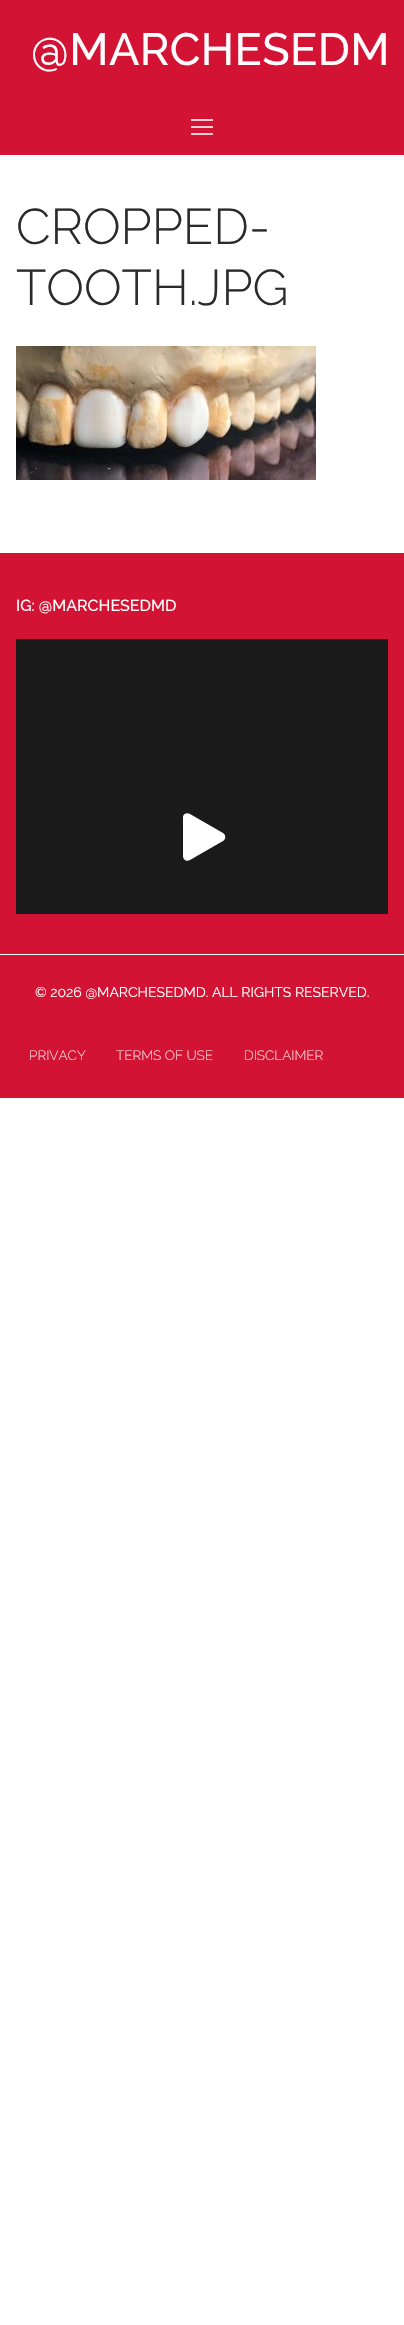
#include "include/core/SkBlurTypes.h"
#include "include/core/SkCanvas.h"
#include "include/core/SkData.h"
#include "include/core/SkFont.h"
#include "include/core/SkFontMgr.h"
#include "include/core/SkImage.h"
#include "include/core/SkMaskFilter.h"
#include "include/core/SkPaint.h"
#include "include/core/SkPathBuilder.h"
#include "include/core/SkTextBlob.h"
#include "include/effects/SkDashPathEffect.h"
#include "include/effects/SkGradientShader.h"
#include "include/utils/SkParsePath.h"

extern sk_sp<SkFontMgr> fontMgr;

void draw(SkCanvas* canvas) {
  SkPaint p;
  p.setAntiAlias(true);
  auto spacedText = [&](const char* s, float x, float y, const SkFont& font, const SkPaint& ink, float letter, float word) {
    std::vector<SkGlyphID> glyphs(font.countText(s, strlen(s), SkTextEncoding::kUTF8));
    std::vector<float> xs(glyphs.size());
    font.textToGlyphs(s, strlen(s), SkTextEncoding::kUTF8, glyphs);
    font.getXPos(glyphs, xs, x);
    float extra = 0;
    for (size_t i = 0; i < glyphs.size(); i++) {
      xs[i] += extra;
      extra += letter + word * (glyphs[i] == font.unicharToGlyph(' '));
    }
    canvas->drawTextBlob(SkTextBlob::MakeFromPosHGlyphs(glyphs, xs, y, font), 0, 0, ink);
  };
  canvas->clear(SK_ColorWHITE);
  p.setColor(SkColorSetRGB(211, 19, 52));
  canvas->drawRect(SkRect::MakeLTRB(0, 0, 404, 155), p);
  p.setColor(SkColorSetRGB(246, 205, 212));
  canvas->drawRect(SkRect::MakeLTRB(191, 126, 213, 128), p);
  canvas->drawRect(SkRect::MakeLTRB(191, 119, 213, 121), p);
  canvas->drawRect(SkRect::MakeLTRB(191, 133, 213, 135), p);
  canvas->drawImageRect(SkImages::DeferredFromEncodedData(SkData::MakeFromFileName("images/1.png")), SkRect::MakeLTRB(16, 346, 316, 480), SkSamplingOptions());
  p.setColor(SkColorSetRGB(211, 19, 52));
  canvas->drawRect(SkRect::MakeLTRB(0, 553, 404, 954), p);
  p.setColor(SkColorSetRGB(26, 26, 26));
  canvas->drawRect(SkRect::MakeLTRB(16, 639, 388, 914), p);
  p.setColor(SK_ColorWHITE);
  canvas->drawPath(SkPathBuilder().moveTo(223, 833).lineTo(190, 814).cubicTo(187, 812, 183, 814, 183, 817).lineTo(183, 856).cubicTo(183, 860, 187, 862, 190, 860).lineTo(223, 841).cubicTo(226, 839, 226, 835, 223, 833).close().detach(), p);
  p.setColor(SkColorSetRGB(211, 19, 52));
  canvas->drawRect(SkRect::MakeLTRB(0, 955, 404, 1098), p);
  SkFont font1(fontMgr->matchFamilyStyle("Raleway", SkFontStyle(500, SkFontStyle::kNormal_Width, SkFontStyle::kUpright_Slant)), 45);
  font1.setSubpixel(true);
  p.setColor(SkColorSetRGB(255, 253, 253));
  spacedText("@MARCHESEDM", 31, 65, font1, p, 0.4f, 0);
  SkFont font2(fontMgr->matchFamilyStyle("Raleway", SkFontStyle(300, SkFontStyle::kNormal_Width, SkFontStyle::kUpright_Slant)), 50);
  font2.setSubpixel(true);
  p.setColor(SkColorSetRGB(43, 43, 43));
  canvas->drawString("CROPPED-", 16, 244, font2, p);
  canvas->drawString("TOOTH.JPG", 16, 305, font2, p);
  SkFont font3(fontMgr->matchFamilyStyle("Raleway", SkFontStyle(500, SkFontStyle::kNormal_Width, SkFontStyle::kUpright_Slant)), 16);
  font3.setSubpixel(true);
  p.setColor(SkColorSetRGB(255, 253, 253));
  canvas->drawString("IG: @MARCHESEDMD", 16, 611, font3, p);
  SkFont font4(fontMgr->matchFamilyStyle("Raleway", SkFontStyle::Normal()), 14);
  font4.setSubpixel(true);
  canvas->drawString("© 2026 @MARCHESEDMD. ALL RIGHTS RESERVED.", 35, 997, font4, p);
  SkFont font5(fontMgr->matchFamilyStyle("Raleway", SkFontStyle(300, SkFontStyle::kNormal_Width, SkFontStyle::kUpright_Slant)), 13.5f);
  font5.setSubpixel(true);
  p.setColor(SkColorSetRGB(246, 205, 212));
  canvas->drawString("PRIVACY", 29, 1060, font5, p);
  canvas->drawString("TERMS OF USE", 116, 1060, font5, p);
  canvas->drawString("DISCLAIMER", 244, 1060, font5, p);
}
